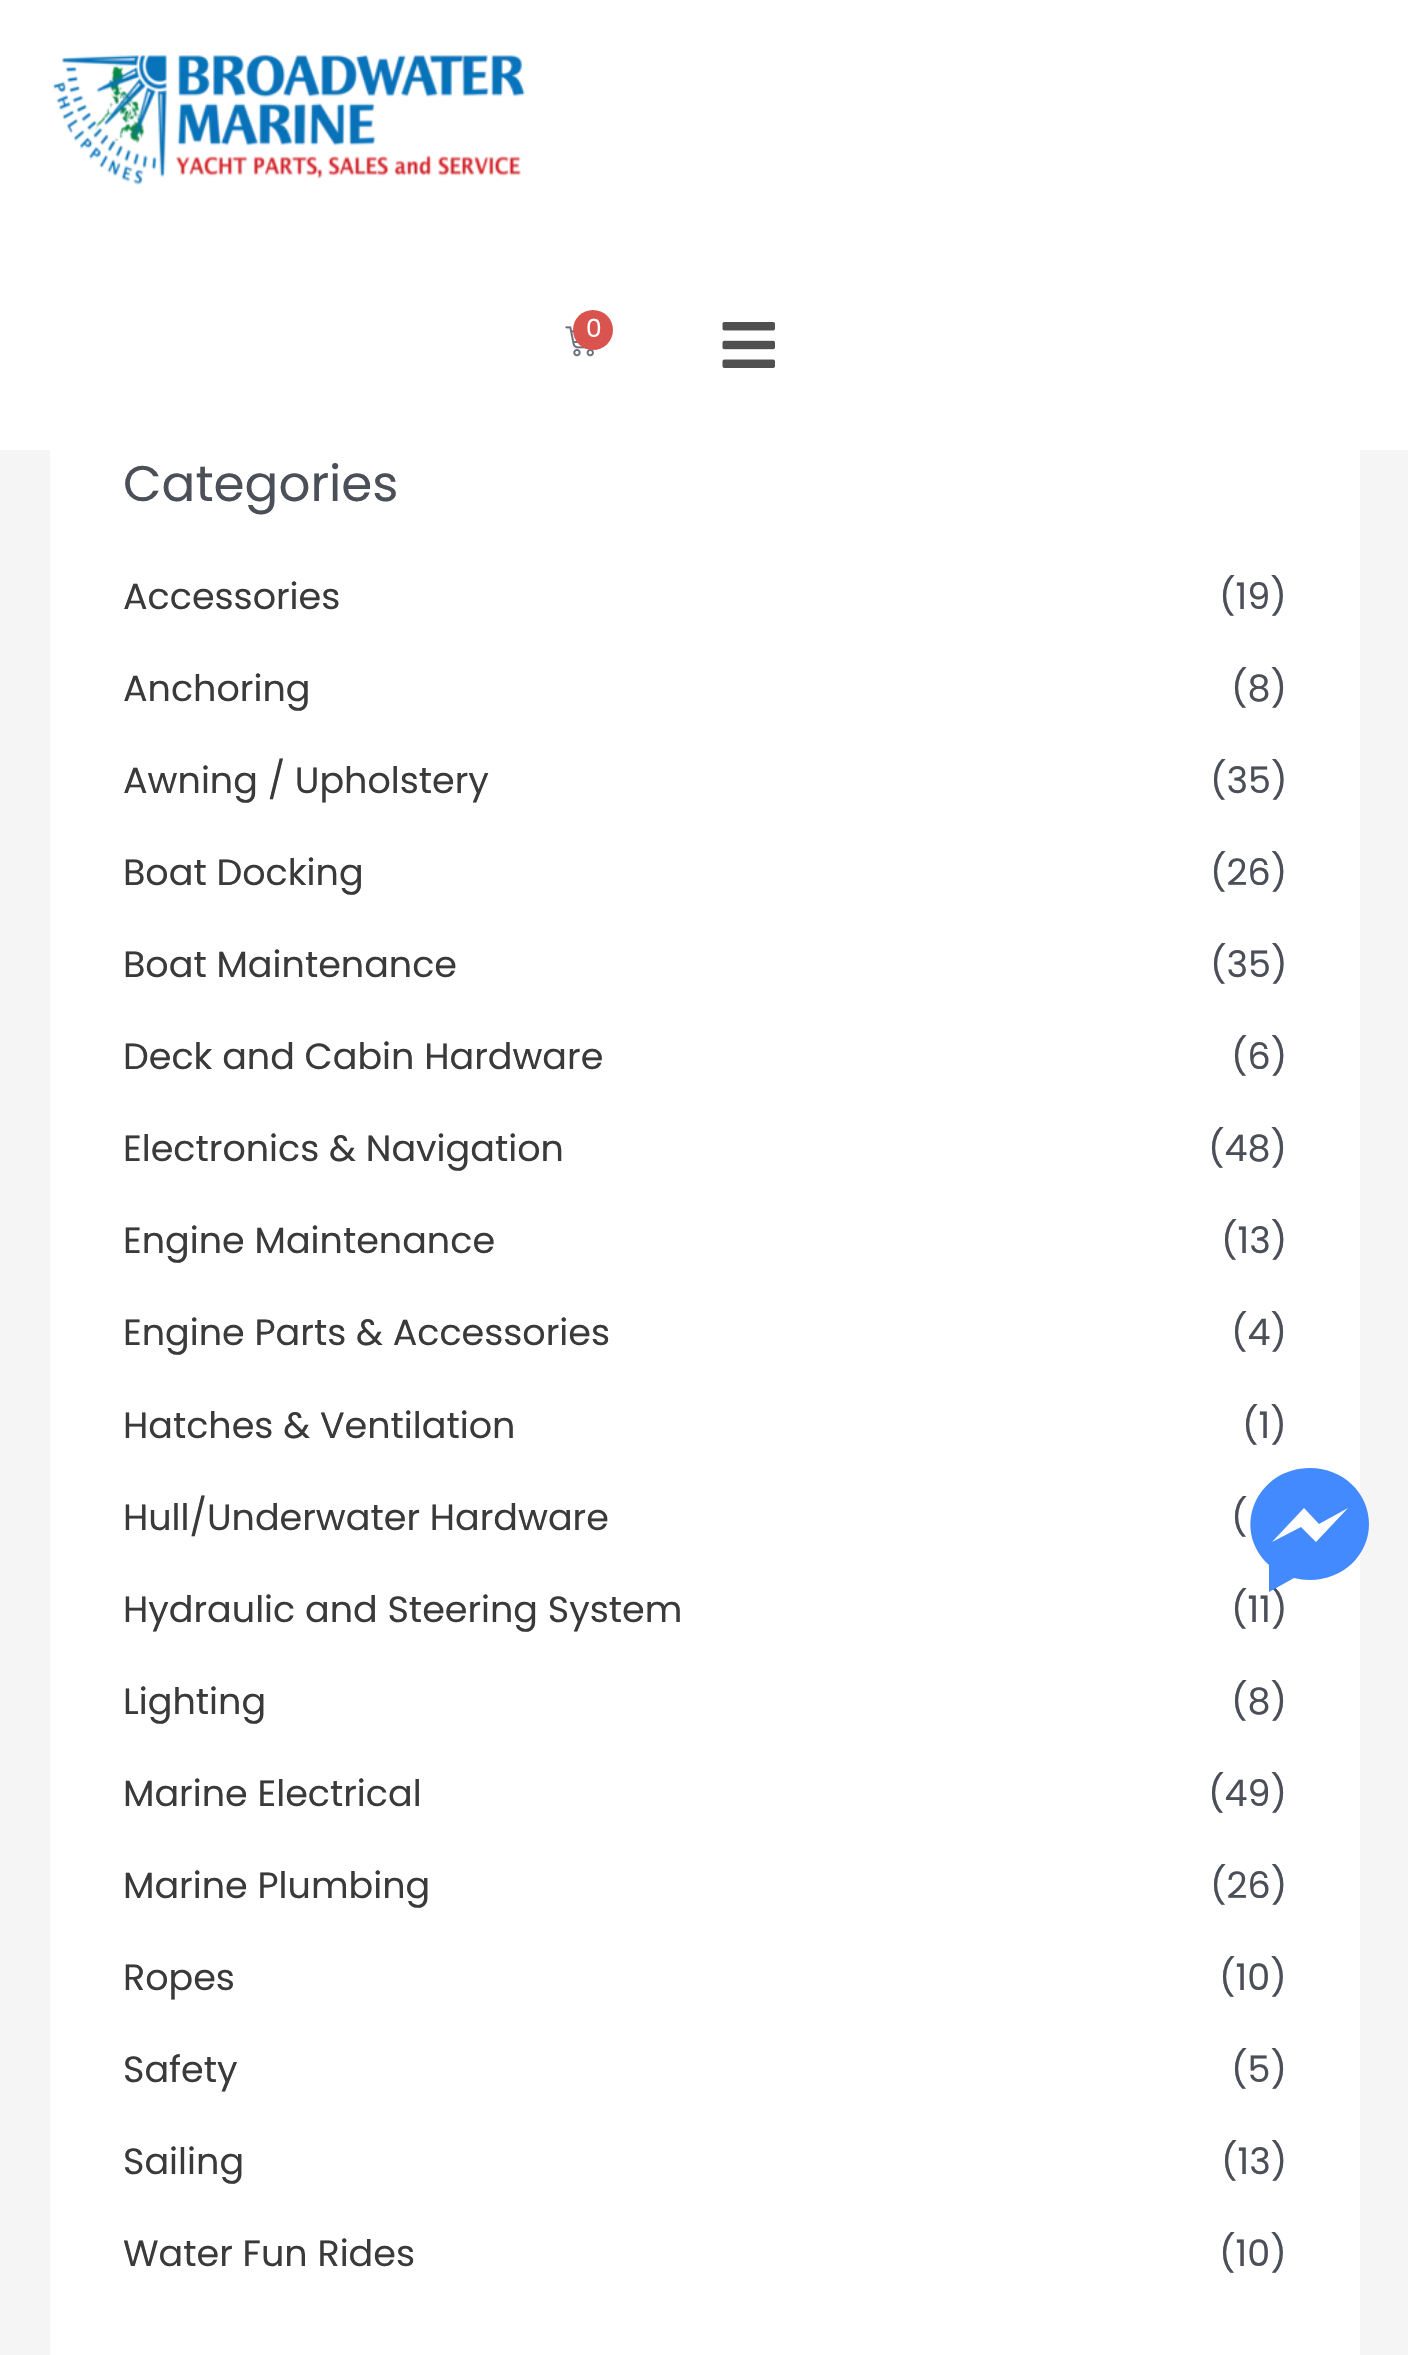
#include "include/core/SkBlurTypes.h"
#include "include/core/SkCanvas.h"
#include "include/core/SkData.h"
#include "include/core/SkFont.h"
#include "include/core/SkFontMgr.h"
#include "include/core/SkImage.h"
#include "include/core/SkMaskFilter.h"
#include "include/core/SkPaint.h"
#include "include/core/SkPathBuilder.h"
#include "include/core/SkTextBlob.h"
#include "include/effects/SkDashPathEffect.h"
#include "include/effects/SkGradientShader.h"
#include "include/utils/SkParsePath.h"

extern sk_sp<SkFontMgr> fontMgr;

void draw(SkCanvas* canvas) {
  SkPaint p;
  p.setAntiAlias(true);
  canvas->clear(SkColorSetRGB(245, 245, 245));
  p.setColor(SK_ColorWHITE);
  canvas->drawRect(SkRect::MakeLTRB(0, 0, 1408, 450), p);
  canvas->drawImageRect(SkImages::DeferredFromEncodedData(SkData::MakeFromFileName("images/1.png")), SkRect::MakeLTRB(52, 54, 525, 185), SkSamplingOptions());
  canvas->drawImageRect(SkImages::DeferredFromEncodedData(SkData::MakeFromFileName("images/2.png")), SkRect::MakeLTRB(565, 326, 594, 357), SkSamplingOptions());
  p.setColor(SkColorSetRGB(217, 83, 79));
  canvas->drawCircle(593, 330, 20, p);
  canvas->drawImageRect(SkImages::DeferredFromEncodedData(SkData::MakeFromFileName("images/3.png")), SkRect::MakeLTRB(722, 322, 775, 368), SkSamplingOptions());
  p.setColor(SK_ColorWHITE);
  canvas->drawRect(SkRect::MakeLTRB(50, 450, 1360, 2355), p);
  SkFont font1(fontMgr->matchFamilyStyle("Poppins", SkFontStyle::Normal()), 25);
  font1.setSubpixel(true);
  canvas->drawString("0", 586, 337, font1, p);
  SkFont font2(fontMgr->matchFamilyStyle("Poppins", SkFontStyle::Normal()), 50);
  font2.setSubpixel(true);
  p.setColor(SkColorSetRGB(75, 79, 88));
  canvas->drawString("Categories", 123, 501, font2, p);
  SkFont font3(fontMgr->matchFamilyStyle("Poppins", SkFontStyle::Normal()), 36.5f);
  font3.setSubpixel(true);
  p.setColor(SkColorSetRGB(58, 58, 58));
  canvas->drawString("Accessories", 123, 609, font3, p);
  p.setColor(SkColorSetRGB(75, 79, 88));
  canvas->drawString("(19)", 1219, 609, font3, p);
  p.setColor(SkColorSetRGB(58, 58, 58));
  canvas->drawString("Anchoring", 123, 701, font3, p);
  p.setColor(SkColorSetRGB(75, 79, 88));
  canvas->drawString("(8)", 1231, 701, font3, p);
  p.setColor(SkColorSetRGB(58, 58, 58));
  canvas->drawString("Awning / Upholstery", 123, 793, font3, p);
  p.setColor(SkColorSetRGB(75, 79, 88));
  canvas->drawString("(35)", 1210, 793, font3, p);
  p.setColor(SkColorSetRGB(58, 58, 58));
  canvas->drawString("Boat Docking", 123, 885, font3, p);
  p.setColor(SkColorSetRGB(75, 79, 88));
  canvas->drawString("(26)", 1210, 885, font3, p);
  p.setColor(SkColorSetRGB(58, 58, 58));
  canvas->drawString("Boat Maintenance", 123, 977, font3, p);
  p.setColor(SkColorSetRGB(75, 79, 88));
  canvas->drawString("(35)", 1210, 977, font3, p);
  p.setColor(SkColorSetRGB(58, 58, 58));
  canvas->drawString("Deck and Cabin Hardware", 123, 1069, font3, p);
  p.setColor(SkColorSetRGB(75, 79, 88));
  canvas->drawString("(6)", 1231, 1069, font3, p);
  p.setColor(SkColorSetRGB(58, 58, 58));
  canvas->drawString("Electronics & Navigation", 123, 1161, font3, p);
  p.setColor(SkColorSetRGB(75, 79, 88));
  canvas->drawString("(48)", 1208, 1161, font3, p);
  p.setColor(SkColorSetRGB(58, 58, 58));
  canvas->drawString("Engine Maintenance", 123, 1253, font3, p);
  p.setColor(SkColorSetRGB(75, 79, 88));
  canvas->drawString("(13)", 1221, 1253, font3, p);
  p.setColor(SkColorSetRGB(58, 58, 58));
  canvas->drawString("Engine Parts & Accessories", 123, 1345, font3, p);
  p.setColor(SkColorSetRGB(75, 79, 88));
  canvas->drawString("(4)", 1231, 1345, font3, p);
  p.setColor(SkColorSetRGB(58, 58, 58));
  canvas->drawString("Hatches & Ventilation", 123, 1438, font3, p);
  p.setColor(SkColorSetRGB(75, 79, 88));
  canvas->drawString("(1)", 1242, 1438, font3, p);
  p.setColor(SkColorSetRGB(58, 58, 58));
  canvas->drawString("Hull/Underwater Hardware", 123, 1530, font3, p);
  p.setColor(SkColorSetRGB(75, 79, 88));
  canvas->drawString("(", 1231, 1530, font3, p);
  p.setColor(SkColorSetRGB(58, 58, 58));
  canvas->drawString("Hydraulic and Steering System", 123, 1622, font3, p);
  p.setColor(SkColorSetRGB(75, 79, 88));
  canvas->drawString("(11)", 1231, 1622, font3, p);
  p.setColor(SkColorSetRGB(58, 58, 58));
  canvas->drawString("Lighting", 123, 1714, font3, p);
  p.setColor(SkColorSetRGB(75, 79, 88));
  canvas->drawString("(8)", 1231, 1714, font3, p);
  p.setColor(SkColorSetRGB(58, 58, 58));
  canvas->drawString("Marine Electrical", 123, 1806, font3, p);
  p.setColor(SkColorSetRGB(75, 79, 88));
  canvas->drawString("(49)", 1208, 1806, font3, p);
  p.setColor(SkColorSetRGB(58, 58, 58));
  canvas->drawString("Marine Plumbing", 123, 1898, font3, p);
  p.setColor(SkColorSetRGB(75, 79, 88));
  canvas->drawString("(26)", 1210, 1898, font3, p);
  p.setColor(SkColorSetRGB(58, 58, 58));
  canvas->drawString("Ropes", 123, 1990, font3, p);
  p.setColor(SkColorSetRGB(75, 79, 88));
  canvas->drawString("(10)", 1219, 1990, font3, p);
  p.setColor(SkColorSetRGB(58, 58, 58));
  canvas->drawString("Safety", 123, 2082, font3, p);
  p.setColor(SkColorSetRGB(75, 79, 88));
  canvas->drawString("(5)", 1231, 2082, font3, p);
  p.setColor(SkColorSetRGB(58, 58, 58));
  canvas->drawString("Sailing", 123, 2174, font3, p);
  p.setColor(SkColorSetRGB(75, 79, 88));
  canvas->drawString("(13)", 1221, 2174, font3, p);
  p.setColor(SkColorSetRGB(58, 58, 58));
  canvas->drawString("Water Fun Rides", 123, 2266, font3, p);
  p.setColor(SkColorSetRGB(75, 79, 88));
  canvas->drawString("(10)", 1219, 2266, font3, p);
  p.setColor(SkColorSetRGB(68, 138, 255));
  canvas->drawPath(SkPathBuilder().moveTo(1310, 1468).cubicTo(1257, 1468, 1230, 1529, 1269, 1565).lineTo(1269, 1592).lineTo(1294, 1578).cubicTo(1299, 1579, 1304, 1580, 1310, 1580).cubicTo(1343, 1580, 1369, 1555, 1369, 1524).cubicTo(1369, 1493, 1343, 1468, 1310, 1468).close().detach(), p);
  p.setColor(SK_ColorWHITE);
  canvas->drawPath(SkPathBuilder().moveTo(1272, 1542).lineTo(1304, 1508).lineTo(1319, 1524).lineTo(1348, 1508).lineTo(1316, 1542).lineTo(1301, 1527).close().detach(), p);
}
